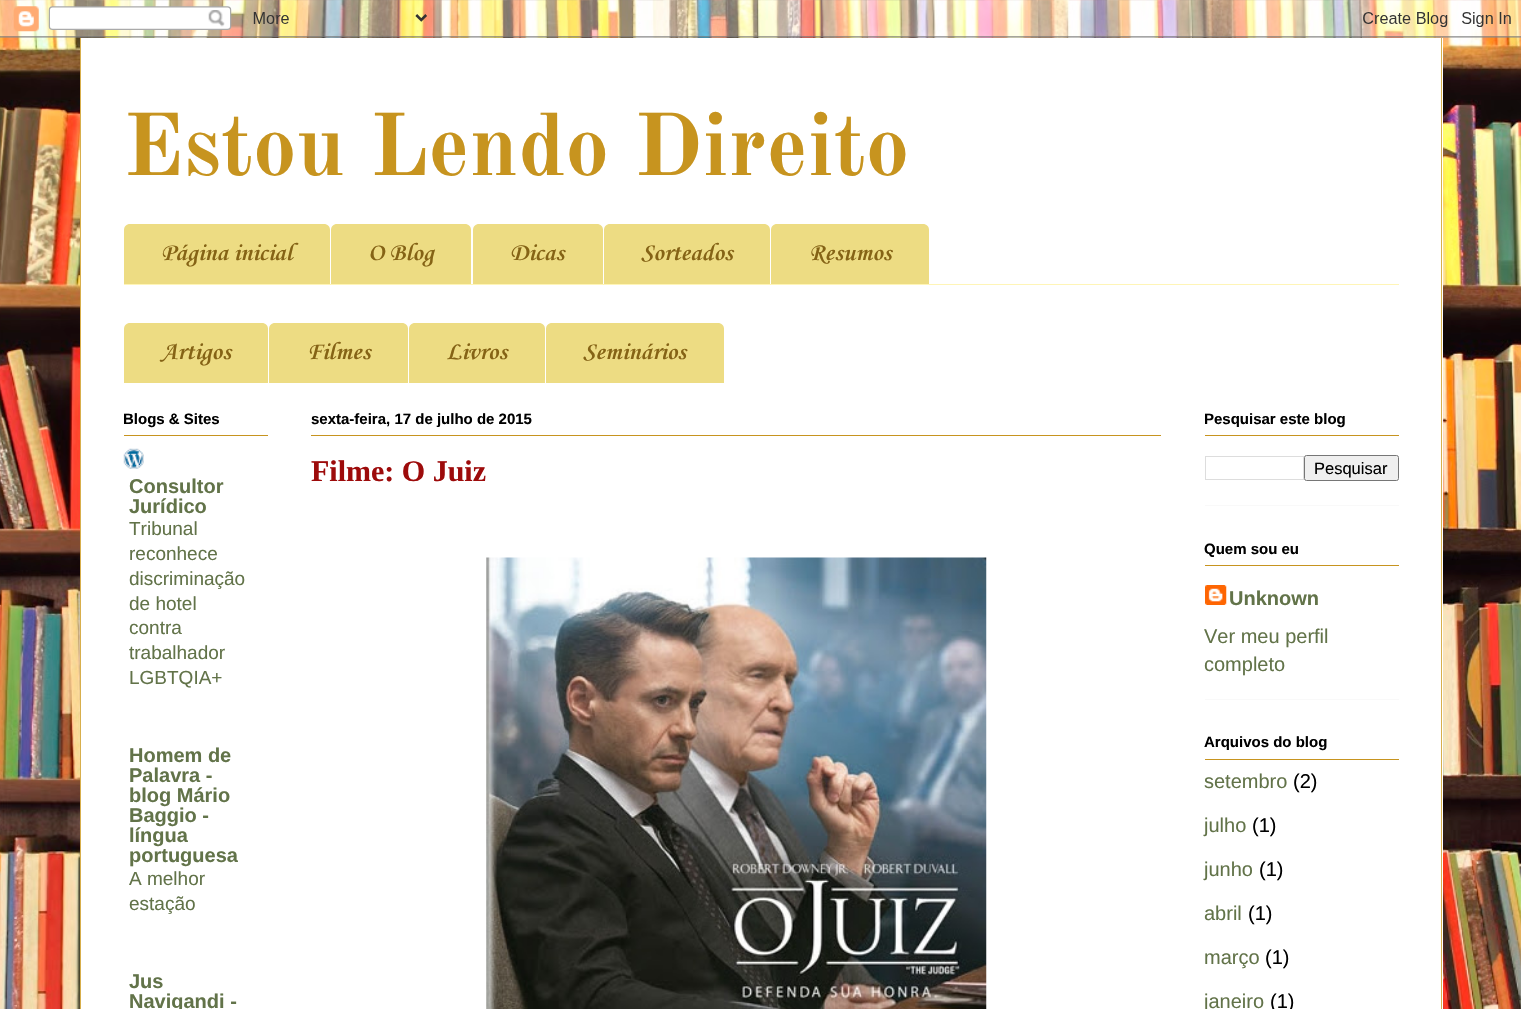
#include "include/core/SkBlurTypes.h"
#include "include/core/SkCanvas.h"
#include "include/core/SkData.h"
#include "include/core/SkFont.h"
#include "include/core/SkFontMgr.h"
#include "include/core/SkImage.h"
#include "include/core/SkMaskFilter.h"
#include "include/core/SkPaint.h"
#include "include/core/SkPathBuilder.h"
#include "include/core/SkTextBlob.h"
#include "include/effects/SkDashPathEffect.h"
#include "include/effects/SkGradientShader.h"
#include "include/utils/SkParsePath.h"

extern sk_sp<SkFontMgr> fontMgr;

void draw(SkCanvas* canvas) {
  SkPaint p;
  p.setAntiAlias(true);
  canvas->clear(SK_ColorWHITE);
  canvas->drawImageRect(SkImages::DeferredFromEncodedData(SkData::MakeFromFileName("images/1.png")), SkRect::MakeLTRB(0, 0, 1521, 1009), SkSamplingOptions());
  canvas->drawImageRect(SkImages::DeferredFromEncodedData(SkData::MakeFromFileName("images/2.png")), SkRect::MakeLTRB(0, 0, 1521, 38), SkSamplingOptions());
  p.setColor(SK_ColorWHITE);
  canvas->drawRect(SkRect::MakeLTRB(81, 38, 1443, 1009), p);
  p.setColor(SkColorSetRGB(216, 175, 76));
  canvas->drawRect(SkRect::MakeLTRB(1441, 38, 1442, 1009), p);
  canvas->drawRect(SkRect::MakeLTRB(80, 38, 81, 1009), p);
  p.setColor(SkColorSetRGB(255, 245, 183));
  canvas->drawRect(SkRect::MakeLTRB(124, 284, 1399, 285), p);
  p.setColor(SkColorSetRGB(237, 220, 131));
  canvas->drawPath(SkPathBuilder().moveTo(130, 224).lineTo(324, 224).cubicTo(327.5f, 224, 330, 226.5f, 330, 230).lineTo(330, 284).lineTo(124, 284).lineTo(124, 230).cubicTo(124, 226.5f, 126.5f, 224, 130, 224).close().detach(), p);
  canvas->drawPath(SkPathBuilder().moveTo(337, 224).lineTo(465, 224).cubicTo(468.5f, 224, 471, 226.5f, 471, 230).lineTo(471, 284).lineTo(331, 284).lineTo(331, 230).cubicTo(331, 226.5f, 333.5f, 224, 337, 224).close().detach(), p);
  canvas->drawPath(SkPathBuilder().moveTo(479, 224).lineTo(597, 224).cubicTo(600.5f, 224, 603, 226.5f, 603, 230).lineTo(603, 284).lineTo(473, 284).lineTo(473, 230).cubicTo(473, 226.5f, 475.5f, 224, 479, 224).close().detach(), p);
  canvas->drawPath(SkPathBuilder().moveTo(610, 224).lineTo(764, 224).cubicTo(767.5f, 224, 770, 226.5f, 770, 230).lineTo(770, 284).lineTo(604, 284).lineTo(604, 230).cubicTo(604, 226.5f, 606.5f, 224, 610, 224).close().detach(), p);
  canvas->drawPath(SkPathBuilder().moveTo(777, 224).lineTo(923, 224).cubicTo(926.5f, 224, 929, 226.5f, 929, 230).lineTo(929, 284).lineTo(771, 284).lineTo(771, 230).cubicTo(771, 226.5f, 773.5f, 224, 777, 224).close().detach(), p);
  canvas->drawPath(SkPathBuilder().moveTo(130, 323).lineTo(262, 323).cubicTo(265.5f, 323, 268, 325.5f, 268, 329).lineTo(268, 383).lineTo(124, 383).lineTo(124, 329).cubicTo(124, 325.5f, 126.5f, 323, 130, 323).close().detach(), p);
  canvas->drawPath(SkPathBuilder().moveTo(275, 323).lineTo(402, 323).cubicTo(405.5f, 323, 408, 325.5f, 408, 329).lineTo(408, 383).lineTo(269, 383).lineTo(269, 329).cubicTo(269, 325.5f, 271.5f, 323, 275, 323).close().detach(), p);
  canvas->drawPath(SkPathBuilder().moveTo(415, 323).lineTo(539, 323).cubicTo(542.5f, 323, 545, 325.5f, 545, 329).lineTo(545, 383).lineTo(409, 383).lineTo(409, 329).cubicTo(409, 325.5f, 411.5f, 323, 415, 323).close().detach(), p);
  canvas->drawPath(SkPathBuilder().moveTo(552, 323).lineTo(718, 323).cubicTo(721.5f, 323, 724, 325.5f, 724, 329).lineTo(724, 383).lineTo(546, 383).lineTo(546, 329).cubicTo(546, 325.5f, 548.5f, 323, 552, 323).close().detach(), p);
  p.setColor(SkColorSetRGB(199, 148, 31));
  canvas->drawRect(SkRect::MakeLTRB(124, 435, 268, 436), p);
  canvas->drawImageRect(SkImages::DeferredFromEncodedData(SkData::MakeFromFileName("images/3.png")), SkRect::MakeLTRB(123, 448, 144, 469), SkSamplingOptions());
  canvas->drawRect(SkRect::MakeLTRB(311, 435, 1161, 436), p);
  canvas->drawImageRect(SkImages::DeferredFromEncodedData(SkData::MakeFromFileName("images/4.png")), SkRect::MakeLTRB(486, 557, 987, 1009), SkSamplingOptions());
  p.setColor(SkColorSetRGB(249, 249, 249));
  canvas->drawRect(SkRect::MakeLTRB(1205, 505, 1399, 506), p);
  p.setColor(SkColorSetRGB(199, 148, 31));
  canvas->drawRect(SkRect::MakeLTRB(1205, 435, 1399, 436), p);
  p.setStyle(SkPaint::kStroke_Style);
  p.setStrokeWidth(1);
  p.setColor(SkColorSetRGB(221, 221, 221));
  canvas->drawRect(SkRect::MakeLTRB(1205.5f, 456.5f, 1303.5f, 479.5f), p);
  p.setStyle(SkPaint::kFill_Style);
  p.setColor(SkColorSetRGB(239, 239, 239));
  canvas->drawRoundRect(SkRect::MakeLTRB(1304.5f, 455.5f, 1398.5f, 480.5f), 2, 2, p);
  p.setStyle(SkPaint::kStroke_Style);
  p.setColor(SkColorSetRGB(118, 118, 118));
  canvas->drawRoundRect(SkRect::MakeLTRB(1304.5f, 455.5f, 1398.5f, 480.5f), 2, 2, p);
  p.setStyle(SkPaint::kFill_Style);
  p.setColor(SkColorSetRGB(249, 249, 249));
  canvas->drawRect(SkRect::MakeLTRB(1205, 699, 1399, 700), p);
  p.setColor(SkColorSetRGB(199, 148, 31));
  canvas->drawRect(SkRect::MakeLTRB(1205, 565, 1399, 566), p);
  canvas->drawImageRect(SkImages::DeferredFromEncodedData(SkData::MakeFromFileName("images/5.png")), SkRect::MakeLTRB(1205, 585, 1227, 605), SkSamplingOptions());
  canvas->drawRect(SkRect::MakeLTRB(1205, 759, 1399, 760), p);
  SkFont font1(fontMgr->matchFamilyStyle("Old Standard TT", SkFontStyle::Bold()), 87.5f);
  font1.setSubpixel(true);
  canvas->drawString("Estou Lendo Direito", 123, 175, font1, p);
  SkFont font2(fontMgr->matchFamilyStyle("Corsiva", SkFontStyle::Bold()), 25);
  font2.setSubpixel(true);
  p.setColor(SkColorSetRGB(133, 99, 21));
  canvas->drawString("Página inicial", 161, 260, font2, p);
  canvas->drawString("O Blog", 368, 260, font2, p);
  canvas->drawString("Dicas", 510, 260, font2, p);
  canvas->drawString("Sorteados", 641, 260, font2, p);
  canvas->drawString("Resumos", 809, 260, font2, p);
  canvas->drawString("Artigos", 161, 359, font2, p);
  canvas->drawString("Filmes", 307, 359, font2, p);
  canvas->drawString("Livros", 446, 359, font2, p);
  canvas->drawString("Seminários", 583, 359, font2, p);
  SkFont font3(fontMgr->matchFamilyStyle("Liberation Sans", SkFontStyle::Bold()), 15);
  font3.setSubpixel(true);
  p.setColor(SK_ColorBLACK);
  canvas->drawString("Blogs & Sites", 123, 424, font3, p);
  SkFont font4(fontMgr->matchFamilyStyle("Liberation Sans", SkFontStyle::Bold()), 20);
  font4.setSubpixel(true);
  p.setColor(SkColorSetRGB(98, 115, 73));
  canvas->drawString("Consultor", 129, 493, font4, p);
  canvas->drawString("Jurídico", 129, 513, font4, p);
  SkFont font5(fontMgr->matchFamilyStyle("Liberation Sans", SkFontStyle::Normal()), 19);
  font5.setSubpixel(true);
  canvas->drawString("Tribunal", 129, 535, font5, p);
  canvas->drawString("reconhece", 129, 560, font5, p);
  canvas->drawString("discriminação", 129, 585, font5, p);
  canvas->drawString("de hotel", 129, 610, font5, p);
  canvas->drawString("contra", 129, 634, font5, p);
  canvas->drawString("trabalhador", 129, 659, font5, p);
  canvas->drawString("LGBTQIA+", 129, 684, font5, p);
  canvas->drawString("Homem de", 129, 762, font4, p);
  canvas->drawString("Palavra -", 129, 782, font4, p);
  canvas->drawString("blog Mário", 129, 802, font4, p);
  canvas->drawString("Baggio -", 129, 822, font4, p);
  canvas->drawString("língua", 129, 842, font4, p);
  canvas->drawString("portuguesa", 129, 862, font4, p);
  canvas->drawString("A melhor", 129, 885, font5, p);
  canvas->drawString("estação", 129, 910, font5, p);
  canvas->drawString("Jus", 129, 988, font4, p);
  canvas->drawString("Navigandi -", 129, 1008, font4, p);
  p.setColor(SK_ColorBLACK);
  canvas->drawString("sexta-feira, 17 de julho de 2015", 311, 424, font3, p);
  SkFont font6(fontMgr->matchFamilyStyle("Liberation Serif", SkFontStyle::Bold()), 30);
  font6.setSubpixel(true);
  p.setColor(SkColorSetRGB(157, 11, 11));
  canvas->drawString("Filme: O Juiz", 311, 481, font6, p);
  p.setColor(SK_ColorBLACK);
  canvas->drawString("Pesquisar este blog", 1204, 424, font3, p);
  SkFont font7(fontMgr->matchFamilyStyle("Liberation Sans", SkFontStyle::Normal()), 16.5f);
  font7.setSubpixel(true);
  canvas->drawString("Pesquisar", 1314, 474, font7, p);
  canvas->drawString("Quem sou eu", 1204, 554, font3, p);
  p.setColor(SkColorSetRGB(98, 115, 73));
  canvas->drawString("Unknown", 1229, 605, font4, p);
  SkFont font8(fontMgr->matchFamilyStyle("Liberation Sans", SkFontStyle::Normal()), 20);
  font8.setSubpixel(true);
  canvas->drawString("Ver meu perfil", 1204, 643, font8, p);
  canvas->drawString("completo", 1204, 671, font8, p);
  p.setColor(SK_ColorBLACK);
  canvas->drawString("Arquivos do blog", 1204, 747, font3, p);
  p.setColor(SkColorSetRGB(98, 115, 73));
  canvas->drawString("setembro", 1204, 788, font8, p);
  p.setColor(SK_ColorBLACK);
  canvas->drawString("(2)", 1293, 788, font8, p);
  p.setColor(SkColorSetRGB(98, 115, 73));
  canvas->drawString("julho", 1204, 832, font8, p);
  p.setColor(SK_ColorBLACK);
  canvas->drawString("(1)", 1252, 832, font8, p);
  p.setColor(SkColorSetRGB(98, 115, 73));
  canvas->drawString("junho", 1204, 876, font8, p);
  p.setColor(SK_ColorBLACK);
  canvas->drawString("(1)", 1259, 876, font8, p);
  p.setColor(SkColorSetRGB(98, 115, 73));
  canvas->drawString("abril", 1204, 920, font8, p);
  p.setColor(SK_ColorBLACK);
  canvas->drawString("(1)", 1248, 920, font8, p);
  p.setColor(SkColorSetRGB(98, 115, 73));
  canvas->drawString("março", 1204, 964, font8, p);
  p.setColor(SK_ColorBLACK);
  canvas->drawString("(1)", 1265, 964, font8, p);
  p.setColor(SkColorSetRGB(98, 115, 73));
  canvas->drawString("janeiro", 1204, 1008, font8, p);
  p.setColor(SK_ColorBLACK);
  canvas->drawString("(1)", 1270, 1008, font8, p);
}
